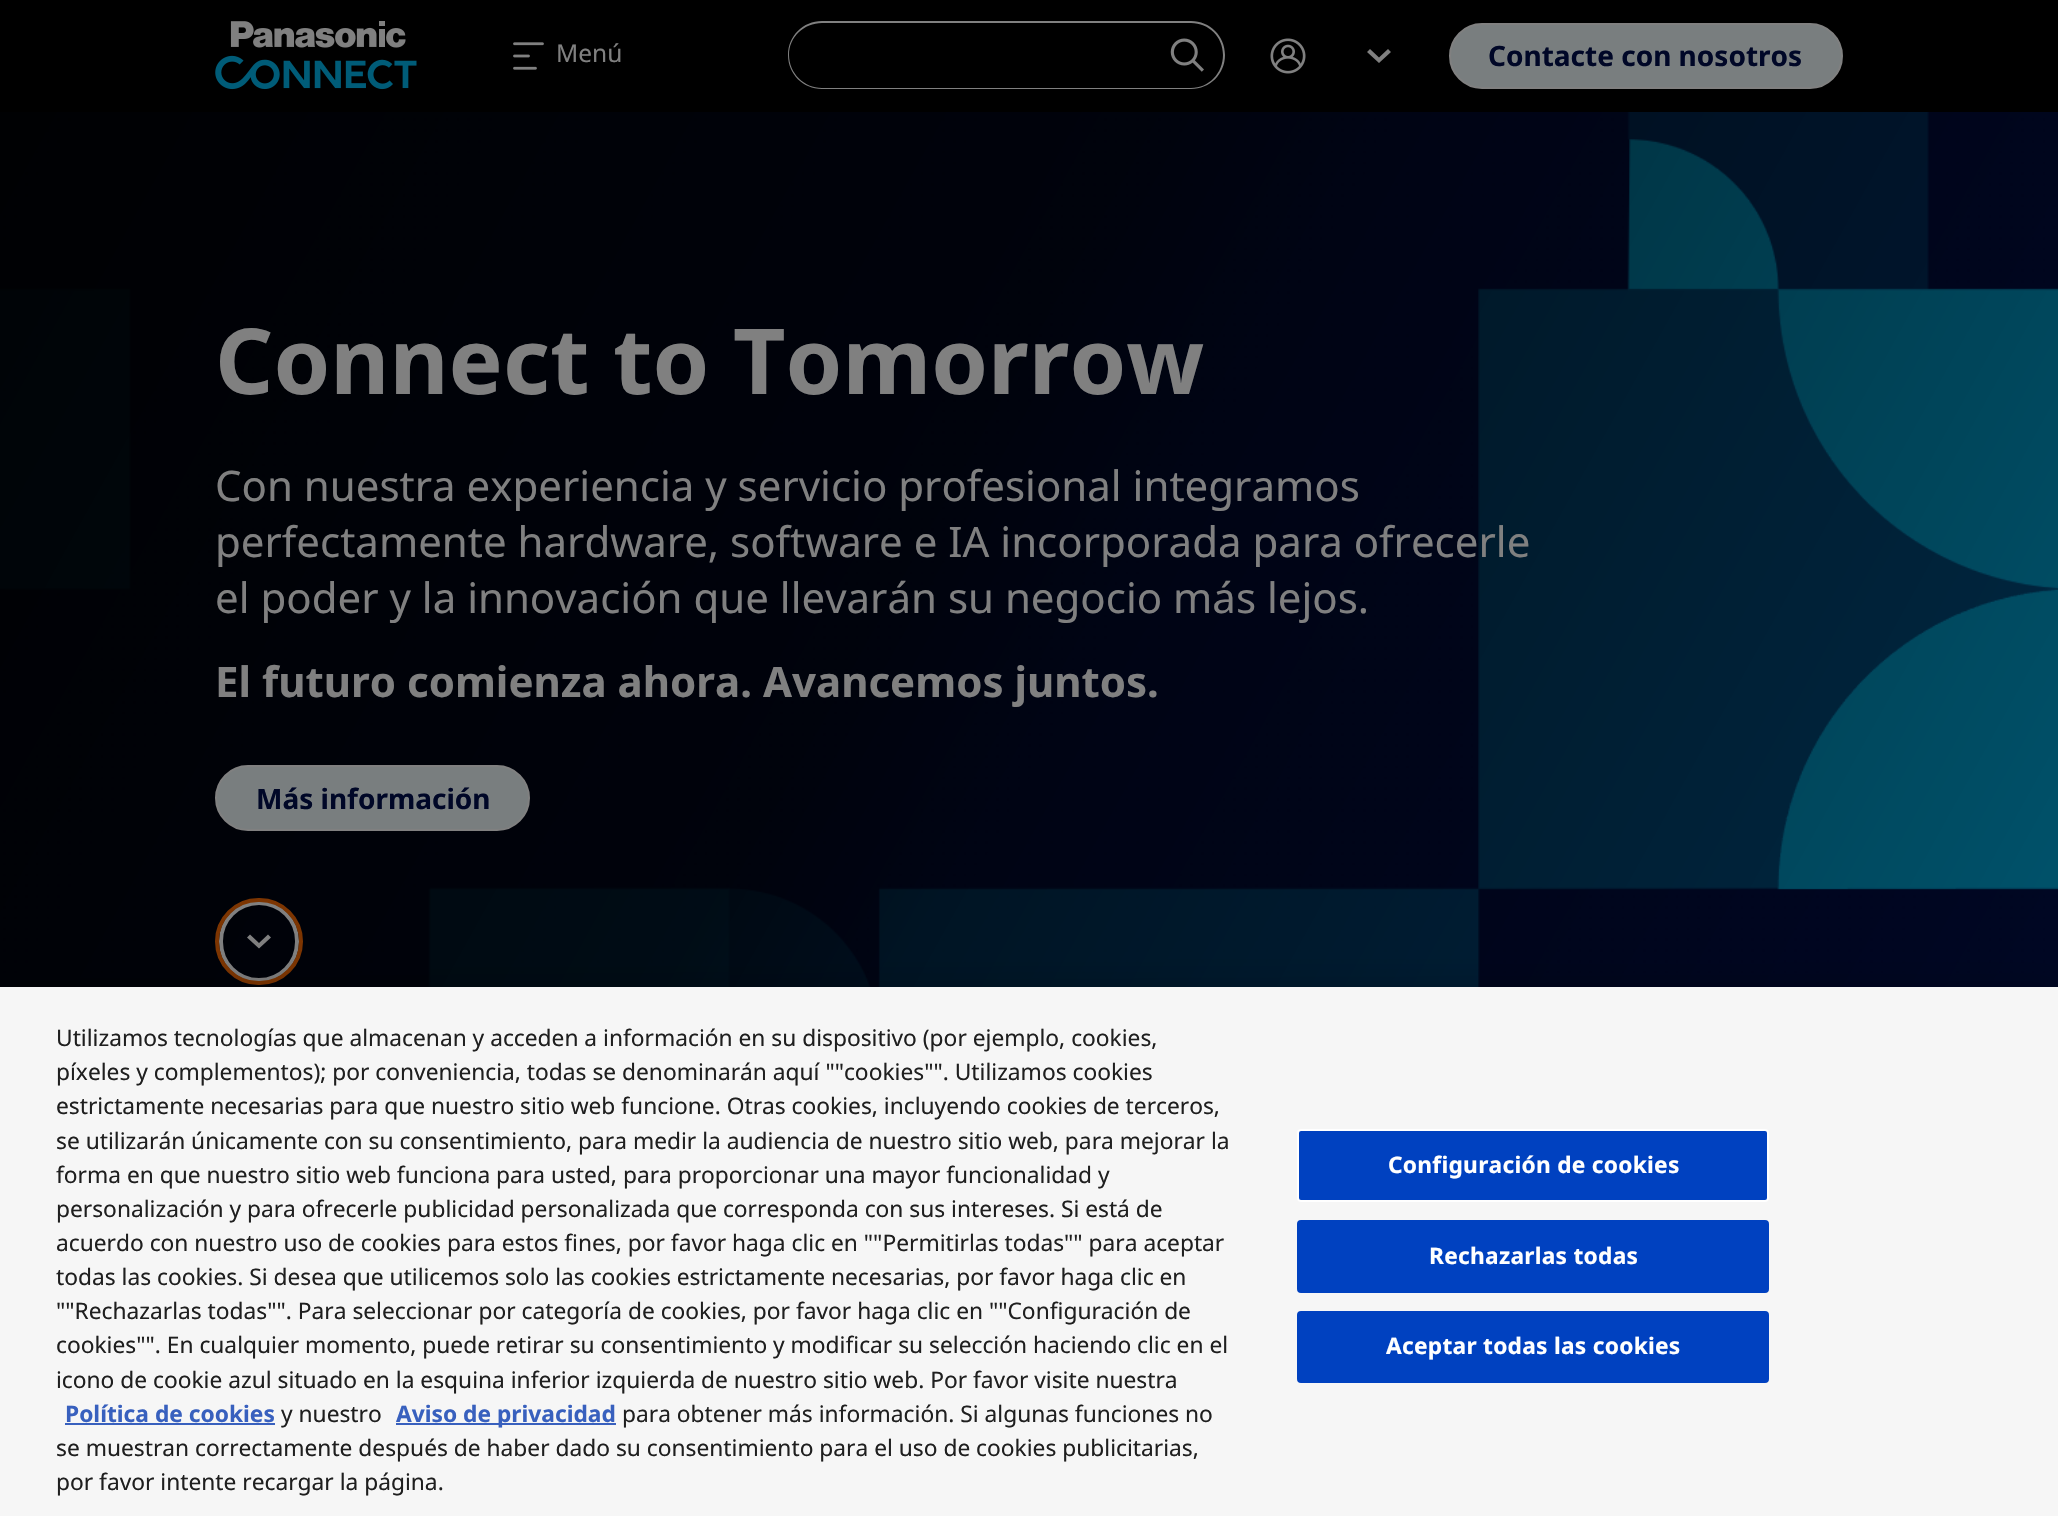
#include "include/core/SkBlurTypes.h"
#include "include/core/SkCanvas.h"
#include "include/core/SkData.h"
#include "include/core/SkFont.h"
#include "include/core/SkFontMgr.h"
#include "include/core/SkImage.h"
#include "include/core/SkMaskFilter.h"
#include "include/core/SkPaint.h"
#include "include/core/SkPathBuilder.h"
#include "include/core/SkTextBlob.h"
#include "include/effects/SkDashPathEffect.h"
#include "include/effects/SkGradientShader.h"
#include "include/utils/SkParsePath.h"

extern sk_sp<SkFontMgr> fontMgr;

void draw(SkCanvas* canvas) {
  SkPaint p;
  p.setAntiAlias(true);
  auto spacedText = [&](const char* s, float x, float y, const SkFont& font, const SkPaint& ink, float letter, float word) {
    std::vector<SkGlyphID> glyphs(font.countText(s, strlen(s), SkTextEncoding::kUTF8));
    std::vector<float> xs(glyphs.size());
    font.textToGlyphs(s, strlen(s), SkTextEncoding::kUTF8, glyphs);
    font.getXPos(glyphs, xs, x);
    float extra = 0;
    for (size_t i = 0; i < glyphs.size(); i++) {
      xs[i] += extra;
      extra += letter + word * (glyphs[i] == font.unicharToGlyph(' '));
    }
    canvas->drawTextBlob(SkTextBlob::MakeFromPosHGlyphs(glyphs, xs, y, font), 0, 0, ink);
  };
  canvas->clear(SK_ColorWHITE);
  p.setColor(SK_ColorBLACK);
  canvas->drawRect(SkRect::MakeLTRB(0, 0, 2058, 112), p);
  canvas->drawImageRect(SkImages::DeferredFromEncodedData(SkData::MakeFromFileName("images/1.png")), SkRect::MakeLTRB(215, 21, 417, 90), SkSamplingOptions());
  canvas->drawImageRect(SkImages::DeferredFromEncodedData(SkData::MakeFromFileName("images/2.png")), SkRect::MakeLTRB(513, 42, 544, 70), SkSamplingOptions());
  p.setColor(SkColorSetRGB(128, 128, 128));
  canvas->drawPath(SkPathBuilder(SkPathFillType::kEvenOdd).moveTo(1153, 21).lineTo(1191, 21).cubicTo(1210, 21, 1225, 36, 1225, 55).cubicTo(1225, 74, 1210, 89, 1191, 89).lineTo(1153, 89).close().moveTo(1153, 23).lineTo(1191, 23).cubicTo(1209, 23, 1223, 37, 1223, 55).cubicTo(1223, 73, 1209, 88, 1191, 88).lineTo(1153, 88).close().detach(), p);
  canvas->drawPath(SkPathBuilder(SkPathFillType::kEvenOdd).moveTo(822, 21).lineTo(1155, 21).lineTo(1155, 89).lineTo(822, 89).cubicTo(803, 89, 788, 74, 788, 55).cubicTo(788, 36, 803, 21, 822, 21).close().moveTo(822, 23).lineTo(1155, 23).lineTo(1155, 88).lineTo(822, 88).cubicTo(804, 88, 789, 73, 789, 55).cubicTo(789, 37, 804, 23, 822, 23).close().detach(), p);
  canvas->drawImageRect(SkImages::DeferredFromEncodedData(SkData::MakeFromFileName("images/3.png")), SkRect::MakeLTRB(1170, 38, 1204, 72), SkSamplingOptions());
  canvas->drawImageRect(SkImages::DeferredFromEncodedData(SkData::MakeFromFileName("images/4.png")), SkRect::MakeLTRB(1270, 38, 1306, 74), SkSamplingOptions());
  canvas->drawPath(SkPathBuilder().moveTo(1379, 63).lineTo(1367, 52).lineTo(1370, 49).lineTo(1379, 57.5f).lineTo(1388, 49).lineTo(1391, 52).close().detach(), p);
  p.setColor(SkColorSetRGB(121, 126, 127));
  canvas->drawRoundRect(SkRect::MakeLTRB(1450, 24, 1842, 88), 32, 32, p);
  p.setStyle(SkPaint::kStroke_Style);
  p.setStrokeWidth(2);
  p.setColor(SkColorSetRGB(128, 128, 128));
  canvas->drawRoundRect(SkRect::MakeLTRB(1450, 24, 1842, 88), 32, 32, p);
  canvas->drawImageRect(SkImages::DeferredFromEncodedData(SkData::MakeFromFileName("images/5.png")), SkRect::MakeLTRB(0, 112, 2058, 987), SkSamplingOptions());
  p.setStyle(SkPaint::kFill_Style);
  {
    const SkColor colors[] = {SkColorSetARGB(242, 0, 0, 0), SkColorSetARGB(179, 0, 0, 0), SkColorSetARGB(128, 0, 0, 0), SkColorSetARGB(0, 0, 0, 0)};
    const float stops[] = {0, 0.42f, 0.5f, 1};
    const SkPoint ends[] = {{-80, 133}, {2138, 1363}};
    p.setShader(SkGradientShader::MakeLinear(ends, colors, stops, 4, SkTileMode::kClamp));
    p.setAlpha(255);
  }
  canvas->drawRect(SkRect::MakeLTRB(0, 112, 2058, 987), p);
  p.setShader(nullptr);
  p.setColor(SkColorSetRGB(121, 126, 127));
  canvas->drawRoundRect(SkRect::MakeLTRB(216, 766, 529, 830), 32, 32, p);
  p.setStyle(SkPaint::kStroke_Style);
  p.setColor(SkColorSetRGB(128, 128, 128));
  canvas->drawRoundRect(SkRect::MakeLTRB(216, 766, 529, 830), 32, 32, p);
  p.setStrokeWidth(4);
  canvas->drawRoundRect(SkRect::MakeLTRB(221, 903, 297, 980), 38, 38, p);
  p.setColor(SkColorSetRGB(125, 53, 1));
  canvas->drawRoundRect(SkRect::MakeLTRB(217, 900, 301, 983), 41.5f, 41.5f, p);
  p.setStyle(SkPaint::kFill_Style);
  p.setColor(SkColorSetRGB(128, 128, 128));
  canvas->drawPath(SkPathBuilder().moveTo(259, 948.5f).lineTo(247, 937.5f).lineTo(250, 934.5f).lineTo(259, 943).lineTo(268, 934.5f).lineTo(271, 937.5f).close().detach(), p);
  p.setColor(SkColorSetARGB(51, 0, 0, 0));
  p.setMaskFilter(SkMaskFilter::MakeBlur(kNormal_SkBlurStyle, 16));
  canvas->drawRect(SkRect::MakeLTRB(0, 987, 2058, 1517), p);
  p.setMaskFilter(nullptr);
  p.setColor(SkColorSetRGB(246, 246, 246));
  canvas->drawRect(SkRect::MakeLTRB(0, 987, 2058, 1516), p);
  p.setColor(SkColorSetRGB(56, 96, 190));
  canvas->drawRect(SkRect::MakeLTRB(65, 1423, 275, 1425), p);
  canvas->drawRect(SkRect::MakeLTRB(396, 1423, 616, 1425), p);
  p.setColor(SkColorSetRGB(0, 65, 192));
  canvas->drawRoundRect(SkRect::MakeLTRB(1298, 1130, 1768, 1201), 3, 3, p);
  p.setStyle(SkPaint::kStroke_Style);
  p.setStrokeWidth(2);
  p.setColor(SK_ColorWHITE);
  canvas->drawRoundRect(SkRect::MakeLTRB(1298, 1130, 1768, 1201), 3, 3, p);
  p.setStyle(SkPaint::kFill_Style);
  p.setColor(SkColorSetRGB(0, 65, 192));
  canvas->drawRoundRect(SkRect::MakeLTRB(1298, 1221, 1768, 1292), 3, 3, p);
  p.setStyle(SkPaint::kStroke_Style);
  canvas->drawRoundRect(SkRect::MakeLTRB(1298, 1221, 1768, 1292), 3, 3, p);
  p.setStyle(SkPaint::kFill_Style);
  canvas->drawRoundRect(SkRect::MakeLTRB(1298, 1312, 1768, 1382), 3, 3, p);
  p.setStyle(SkPaint::kStroke_Style);
  canvas->drawRoundRect(SkRect::MakeLTRB(1298, 1312, 1768, 1382), 3, 3, p);
  SkFont font1(fontMgr->matchFamilyStyle("Noto Sans", SkFontStyle::Normal()), 24.5f);
  font1.setSubpixel(true);
  p.setStyle(SkPaint::kFill_Style);
  p.setColor(SkColorSetRGB(128, 128, 128));
  canvas->drawString("Menú", 556, 62, font1, p);
  SkFont font2(fontMgr->matchFamilyStyle("Noto Sans", SkFontStyle::Bold()), 28);
  font2.setSubpixel(true);
  p.setColor(SkColorSetRGB(0, 7, 39));
  canvas->drawString("Contacte con nosotros", 1488, 66, font2, p);
  SkFont font3(fontMgr->matchFamilyStyle("Noto Sans", SkFontStyle::Bold()), 91);
  font3.setSubpixel(true);
  p.setColor(SkColorSetRGB(128, 128, 128));
  canvas->drawString("Connect to Tomorrow", 215, 394, font3, p);
  SkFont font4(fontMgr->matchFamilyStyle("Noto Sans", SkFontStyle::Normal()), 42);
  font4.setSubpixel(true);
  canvas->drawString("Con nuestra experiencia y servicio profesional integramos", 215, 501, font4, p);
  canvas->drawString("perfectamente hardware, software e IA incorporada para ofrecerle", 215, 557, font4, p);
  canvas->drawString("el poder y la innovación que llevarán su negocio más lejos.", 215, 613, font4, p);
  SkFont font5(fontMgr->matchFamilyStyle("Noto Sans", SkFontStyle::Bold()), 42);
  font5.setSubpixel(true);
  canvas->drawString("El futuro comienza ahora. Avancemos juntos.", 215, 697, font5, p);
  p.setColor(SkColorSetRGB(0, 7, 39));
  canvas->drawString("Más información", 256, 809, font2, p);
  SkFont font6(fontMgr->matchFamilyStyle("Noto Sans", SkFontStyle::Normal()), 22.75f);
  font6.setSubpixel(true);
  p.setColor(SkColorSetRGB(31, 31, 31));
  canvas->drawString("Utilizamos tecnologías que almacenan y acceden a información en su dispositivo (por ejemplo, cookies,", 56, 1046, font6, p);
  canvas->drawString("píxeles y complementos); por conveniencia, todas se denominarán aquí \"\"cookies\"\". Utilizamos cookies", 56, 1080, font6, p);
  canvas->drawString("estrictamente necesarias para que nuestro sitio web funcione. Otras cookies, incluyendo cookies de terceros,", 56, 1114, font6, p);
  canvas->drawString("se utilizarán únicamente con su consentimiento, para medir la audiencia de nuestro sitio web, para mejorar la", 56, 1149, font6, p);
  canvas->drawString("forma en que nuestro sitio web funciona para usted, para proporcionar una mayor funcionalidad y", 56, 1183, font6, p);
  canvas->drawString("personalización y para ofrecerle publicidad personalizada que corresponda con sus intereses. Si está de", 56, 1217, font6, p);
  canvas->drawString("acuerdo con nuestro uso de cookies para estos fines, por favor haga clic en \"\"Permitirlas todas\"\" para aceptar", 56, 1251, font6, p);
  canvas->drawString("todas las cookies. Si desea que utilicemos solo las cookies estrictamente necesarias, por favor haga clic en", 56, 1285, font6, p);
  canvas->drawString("\"\"Rechazarlas todas\"\". Para seleccionar por categoría de cookies, por favor haga clic en \"\"Configuración de", 56, 1319, font6, p);
  canvas->drawString("cookies\"\". En cualquier momento, puede retirar su consentimiento y modificar su selección haciendo clic en el", 56, 1353, font6, p);
  canvas->drawString("icono de cookie azul situado en la esquina inferior izquierda de nuestro sitio web. Por favor visite nuestra", 56, 1388, font6, p);
  SkFont font7(fontMgr->matchFamilyStyle("Noto Sans", SkFontStyle::Bold()), 22.75f);
  font7.setSubpixel(true);
  p.setColor(SkColorSetRGB(56, 96, 190));
  canvas->drawString("Política de cookies", 65, 1422, font7, p);
  p.setColor(SkColorSetRGB(31, 31, 31));
  canvas->drawString("y nuestro", 281, 1422, font6, p);
  p.setColor(SkColorSetRGB(56, 96, 190));
  canvas->drawString("Aviso de privacidad", 396, 1422, font7, p);
  p.setColor(SkColorSetRGB(31, 31, 31));
  canvas->drawString("para obtener más información. Si algunas funciones no", 622, 1422, font6, p);
  canvas->drawString("se muestran correctamente después de haber dado su consentimiento para el uso de cookies publicitarias,", 56, 1456, font6, p);
  canvas->drawString("por favor intente recargar la página.", 56, 1490, font6, p);
  p.setColor(SK_ColorWHITE);
  spacedText("Configuración de cookies", 1388, 1173, font7, p, 0.25f, 0);
  spacedText("Rechazarlas todas", 1429, 1264, font7, p, 0.25f, 0);
  spacedText("Aceptar todas las cookies", 1386, 1354, font7, p, 0.25f, 0);
}
